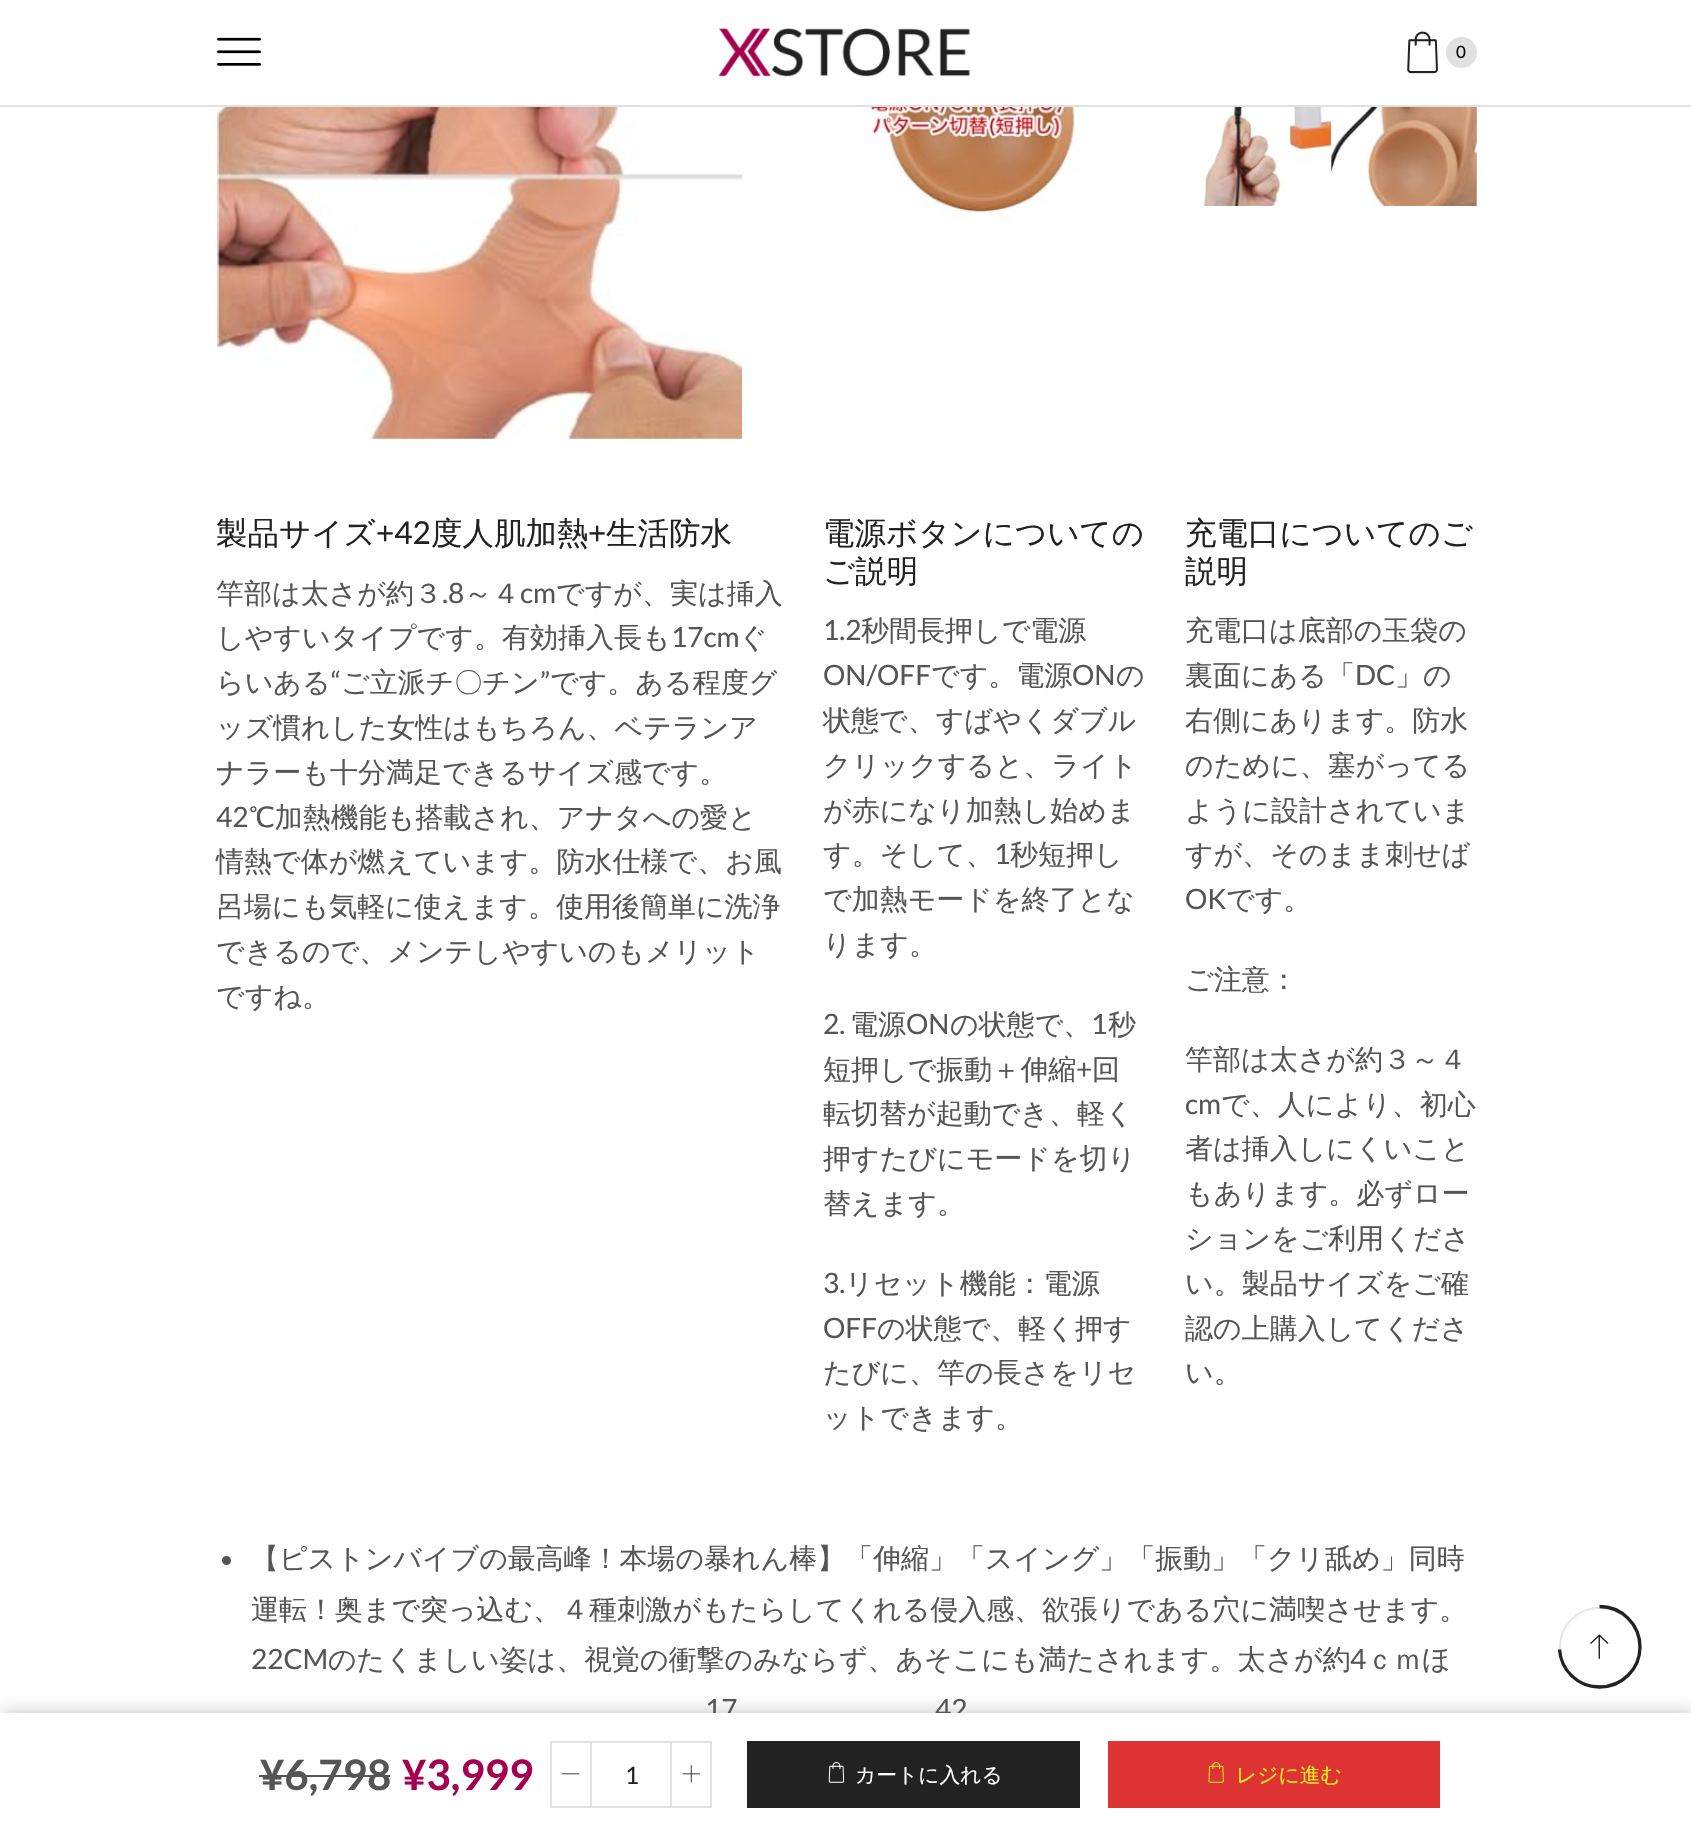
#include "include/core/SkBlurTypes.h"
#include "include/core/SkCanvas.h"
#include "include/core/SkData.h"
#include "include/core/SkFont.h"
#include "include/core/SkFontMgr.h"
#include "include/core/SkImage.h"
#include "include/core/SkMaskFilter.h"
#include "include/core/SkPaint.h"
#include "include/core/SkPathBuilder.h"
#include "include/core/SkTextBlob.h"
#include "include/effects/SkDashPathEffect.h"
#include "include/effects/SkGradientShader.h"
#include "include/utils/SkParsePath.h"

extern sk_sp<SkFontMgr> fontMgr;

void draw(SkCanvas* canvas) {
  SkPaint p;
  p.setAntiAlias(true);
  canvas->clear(SK_ColorWHITE);
  p.setColor(SkColorSetRGB(225, 225, 225));
  canvas->drawRect(SkRect::MakeLTRB(0, 105, 1691, 107), p);
  canvas->drawImageRect(SkImages::DeferredFromEncodedData(SkData::MakeFromFileName("images/1.png")), SkRect::MakeLTRB(217, 37, 261, 66), SkSamplingOptions());
  canvas->drawImageRect(SkImages::DeferredFromEncodedData(SkData::MakeFromFileName("images/2.png")), SkRect::MakeLTRB(718, 28, 970, 77), SkSamplingOptions());
  canvas->drawImageRect(SkImages::DeferredFromEncodedData(SkData::MakeFromFileName("images/3.png")), SkRect::MakeLTRB(1407, 31, 1438, 74), SkSamplingOptions());
  canvas->drawCircle(1461.5f, 52.5f, 15.5f, p);
  canvas->drawImageRect(SkImages::DeferredFromEncodedData(SkData::MakeFromFileName("images/4.png")), SkRect::MakeLTRB(217, 107, 742, 439), SkSamplingOptions());
  canvas->drawImageRect(SkImages::DeferredFromEncodedData(SkData::MakeFromFileName("images/5.png")), SkRect::MakeLTRB(857, 107, 1081, 220), SkSamplingOptions());
  canvas->drawImageRect(SkImages::DeferredFromEncodedData(SkData::MakeFromFileName("images/6.png")), SkRect::MakeLTRB(1184, 107, 1477, 206), SkSamplingOptions());
  p.setColor(SkColorSetRGB(85, 85, 85));
  canvas->drawCircle(226.5f, 1560.5f, 4.5f, p);
  p.setStyle(SkPaint::kStroke_Style);
  p.setStrokeWidth(2);
  p.setColor(SkColorSetRGB(231, 231, 231));
  canvas->drawRoundRect(SkRect::MakeLTRB(1560, 1608, 1639, 1686), 39, 39, p);
  p.setStyle(SkPaint::kFill_Style);
  p.setColor(SkColorSetARGB(77, 0, 0, 0));
  p.setMaskFilter(SkMaskFilter::MakeBlur(kNormal_SkBlurStyle, 9));
  canvas->drawRect(SkRect::MakeLTRB(2, 1715, 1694, 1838), p);
  p.setMaskFilter(nullptr);
  p.setStyle(SkPaint::kStroke_Style);
  p.setStrokeWidth(3.3f);
  p.setColor(SkColorSetRGB(34, 34, 34));
  canvas->drawPath(SkPathBuilder().moveTo(1599.5f, 1606.5f).cubicTo(1622, 1606.5f, 1640, 1624.5f, 1640, 1647).cubicTo(1640, 1669, 1622, 1687, 1599.5f, 1687).cubicTo(1578, 1687, 1561, 1670.5f, 1559.5f, 1649.5f).detach(), p);
  canvas->drawImageRect(SkImages::DeferredFromEncodedData(SkData::MakeFromFileName("images/7.png")), SkRect::MakeLTRB(1590, 1634, 1609, 1659), SkSamplingOptions());
  SkFont font1(fontMgr->matchFamilyStyle("Lato", SkFontStyle::Normal()), 17);
  font1.setSubpixel(true);
  p.setStyle(SkPaint::kFill_Style);
  p.setColor(SK_ColorBLACK);
  canvas->drawString("0", 1456, 58, font1, p);
  SkFont font2(fontMgr->matchFamilyStyle("WenQuanYi Zen Hei", SkFontStyle(500, SkFontStyle::kNormal_Width, SkFontStyle::kUpright_Slant)), 31.5f);
  font2.setSubpixel(true);
  p.setColor(SkColorSetRGB(34, 34, 34));
  canvas->drawString("製品サイズ", 216, 544, font2, p);
  SkFont font3(fontMgr->matchFamilyStyle("Lato", SkFontStyle::Normal()), 31.5f);
  font3.setSubpixel(true);
  canvas->drawString("+42", 376, 544, font3, p);
  canvas->drawString("度人肌加熱", 431, 544, font2, p);
  canvas->drawString("+", 588, 544, font3, p);
  canvas->drawString("生活防水", 606, 544, font2, p);
  SkFont font4(fontMgr->matchFamilyStyle("WenQuanYi Zen Hei", SkFontStyle(500, SkFontStyle::kNormal_Width, SkFontStyle::kUpright_Slant)), 28);
  font4.setSubpixel(true);
  p.setColor(SkColorSetRGB(85, 85, 85));
  canvas->drawString("竿部は太さが約３", 216, 603, font4, p);
  SkFont font5(fontMgr->matchFamilyStyle("Lato", SkFontStyle::Normal()), 28);
  font5.setSubpixel(true);
  canvas->drawString(".8", 442, 603, font5, p);
  canvas->drawString("～４", 464, 603, font4, p);
  canvas->drawString("cm", 520, 603, font5, p);
  canvas->drawString("ですが、実は挿入", 556, 603, font4, p);
  canvas->drawString("しやすいタイプです。有効挿入長も", 216, 647, font4, p);
  canvas->drawString("17cm", 671, 647, font5, p);
  canvas->drawString("ぐ", 739, 647, font4, p);
  canvas->drawString("らいある", 216, 692, font4, p);
  canvas->drawString("“", 331, 692, font5, p);
  canvas->drawString("ご立派チ〇チン", 341, 692, font4, p);
  canvas->drawString("”", 540, 692, font5, p);
  canvas->drawString("です。ある程度グ", 550, 692, font4, p);
  canvas->drawString("ッズ慣れした女性はもちろん、ベテランア", 216, 737, font4, p);
  canvas->drawString("ナラーも十分満足できるサイズ感です。", 216, 782, font4, p);
  canvas->drawString("42", 216, 827, font5, p);
  canvas->drawString("℃加熱機能も搭載され、アナタへの愛と", 249, 827, font4, p);
  canvas->drawString("情熱で体が燃えています。防水仕様で、お風", 216, 871, font4, p);
  canvas->drawString("呂場にも気軽に使えます。使用後簡単に洗浄", 216, 916, font4, p);
  canvas->drawString("できるので、メンテしやすいのもメリット", 216, 961, font4, p);
  canvas->drawString("ですね。", 216, 1006, font4, p);
  p.setColor(SkColorSetRGB(34, 34, 34));
  canvas->drawString("電源ボタンについての", 823, 544, font2, p);
  canvas->drawString("ご説明", 823, 582, font2, p);
  p.setColor(SkColorSetRGB(85, 85, 85));
  canvas->drawString("1.2", 823, 640, font5, p);
  canvas->drawString("秒間長押しで電源", 861, 640, font4, p);
  canvas->drawString("ON/OFF", 823, 685, font5, p);
  canvas->drawString("です。電源", 931, 685, font4, p);
  canvas->drawString("ON", 1072, 685, font5, p);
  canvas->drawString("の", 1116, 685, font4, p);
  canvas->drawString("状態で、すばやくダブル", 823, 730, font4, p);
  canvas->drawString("クリックすると、ライト", 823, 775, font4, p);
  canvas->drawString("が赤になり加熱し始めま", 823, 820, font4, p);
  canvas->drawString("す。そして、", 823, 864, font4, p);
  canvas->drawString("1", 994, 864, font5, p);
  canvas->drawString("秒短押し", 1010, 864, font4, p);
  canvas->drawString("で加熱モードを終了とな", 823, 909, font4, p);
  canvas->drawString("ります。", 823, 954, font4, p);
  canvas->drawString("2.", 823, 1034, font5, p);
  canvas->drawString("電源", 850, 1034, font4, p);
  canvas->drawString("ON", 906, 1034, font5, p);
  canvas->drawString("の状態で、", 950, 1034, font4, p);
  canvas->drawString("1", 1091, 1034, font5, p);
  canvas->drawString("秒", 1108, 1034, font4, p);
  canvas->drawString("短押しで振動＋伸縮", 823, 1079, font4, p);
  canvas->drawString("+", 1076, 1079, font5, p);
  canvas->drawString("回", 1092, 1079, font4, p);
  canvas->drawString("転切替が起動でき、軽く", 823, 1123, font4, p);
  canvas->drawString("押すたびにモードを切り", 823, 1168, font4, p);
  canvas->drawString("替えます。", 823, 1213, font4, p);
  canvas->drawString("3.", 823, 1293, font5, p);
  canvas->drawString("リセット機能：電源", 845, 1293, font4, p);
  canvas->drawString("OFF", 823, 1338, font5, p);
  canvas->drawString("の状態で、軽く押す", 877, 1338, font4, p);
  canvas->drawString("たびに、竿の長さをリセ", 823, 1382, font4, p);
  canvas->drawString("ットできます。", 823, 1427, font4, p);
  p.setColor(SkColorSetRGB(34, 34, 34));
  canvas->drawString("充電口についてのご", 1185, 544, font2, p);
  canvas->drawString("説明", 1185, 582, font2, p);
  p.setColor(SkColorSetRGB(85, 85, 85));
  canvas->drawString("充電口は底部の玉袋の", 1185, 640, font4, p);
  canvas->drawString("裏面にある「", 1185, 685, font4, p);
  canvas->drawString("DC", 1355, 685, font5, p);
  canvas->drawString("」の", 1395, 685, font4, p);
  canvas->drawString("右側にあります。防水", 1185, 730, font4, p);
  canvas->drawString("のために、塞がってる", 1185, 775, font4, p);
  canvas->drawString("ように設計されていま", 1185, 820, font4, p);
  canvas->drawString("すが、そのまま刺せば", 1185, 864, font4, p);
  canvas->drawString("OK", 1185, 909, font5, p);
  canvas->drawString("です。", 1226, 909, font4, p);
  canvas->drawString("ご注意：", 1185, 989, font4, p);
  canvas->drawString("竿部は太さが約３～４", 1185, 1069, font4, p);
  canvas->drawString("cm", 1185, 1114, font5, p);
  canvas->drawString("で、人により、初心", 1221, 1114, font4, p);
  canvas->drawString("者は挿入しにくいこと", 1185, 1158, font4, p);
  canvas->drawString("もあります。必ずロー", 1185, 1203, font4, p);
  canvas->drawString("ションをご利用くださ", 1185, 1248, font4, p);
  canvas->drawString("い。製品サイズをご確", 1185, 1293, font4, p);
  canvas->drawString("認の上購入してくださ", 1185, 1338, font4, p);
  canvas->drawString("い。", 1185, 1382, font4, p);
  SkFont font6(fontMgr->matchFamilyStyle("WenQuanYi Zen Hei", SkFontStyle(500, SkFontStyle::kNormal_Width, SkFontStyle::kUpright_Slant)), 27.95f);
  font6.setSubpixel(true);
  canvas->drawString("【ピストンバイブの最高峰！本場の暴れん棒】「伸縮」「スイング」「振動」「クリ舐め」同時", 251, 1568, font6, p);
  canvas->drawString("運転！奥まで突っ込む、４種刺激がもたらしてくれる侵入感、欲張りである穴に満喫させます。", 251, 1619, font6, p);
  SkFont font7(fontMgr->matchFamilyStyle("Lato", SkFontStyle::Normal()), 27.95f);
  font7.setSubpixel(true);
  canvas->drawString("22CM", 251, 1669, font7, p);
  canvas->drawString("のたくましい姿は、視覚の衝撃のみならず、あそこにも満たされます。太さが約", 328, 1669, font6, p);
  canvas->drawString("4", 1350, 1669, font7, p);
  canvas->drawString("ｃｍほ", 1366, 1669, font6, p);
  canvas->drawString("17", 705, 1719, font7, p);
  canvas->drawString("42", 935, 1719, font7, p);
  p.setColor(SK_ColorWHITE);
  canvas->drawRect(SkRect::MakeLTRB(0, 1713, 1691, 1835), p);
  SkFont font8(fontMgr->matchFamilyStyle("Lato", SkFontStyle::Bold()), 42);
  font8.setSubpixel(true);
  p.setColor(SkColorSetRGB(85, 85, 85));
  canvas->drawString("¥6,798", 260, 1790, font8, p);
  canvas->drawRect(SkRect::MakeLTRB(259, 1775, 390, 1777), p);
  p.setColor(SkColorSetRGB(164, 0, 79));
  canvas->drawString("¥3,999", 402, 1790, font8, p);
  p.setStyle(SkPaint::kStroke_Style);
  p.setStrokeWidth(2);
  p.setColor(SkColorSetRGB(225, 225, 225));
  canvas->drawRect(SkRect::MakeLTRB(551, 1742, 591, 1807), p);
  canvas->drawImageRect(SkImages::DeferredFromEncodedData(SkData::MakeFromFileName("images/8.png")), SkRect::MakeLTRB(561, 1773, 580, 1775), SkSamplingOptions());
  p.setStyle(SkPaint::kFill_Style);
  canvas->drawRect(SkRect::MakeLTRB(592, 1741, 670, 1743), p);
  canvas->drawRect(SkRect::MakeLTRB(592, 1806, 670, 1808), p);
  SkFont font9(fontMgr->matchFamilyStyle("Lato", SkFontStyle::Normal()), 24);
  font9.setSubpixel(true);
  p.setColor(SkColorSetRGB(34, 34, 34));
  canvas->drawString("1", 625, 1784, font9, p);
  p.setStyle(SkPaint::kStroke_Style);
  p.setColor(SkColorSetRGB(225, 225, 225));
  canvas->drawRect(SkRect::MakeLTRB(671, 1742, 711, 1807), p);
  canvas->drawImageRect(SkImages::DeferredFromEncodedData(SkData::MakeFromFileName("images/9.png")), SkRect::MakeLTRB(682, 1765, 700, 1783), SkSamplingOptions());
  p.setStyle(SkPaint::kFill_Style);
  p.setColor(SkColorSetRGB(34, 34, 34));
  canvas->drawRect(SkRect::MakeLTRB(747, 1741, 1080, 1808), p);
  canvas->drawImageRect(SkImages::DeferredFromEncodedData(SkData::MakeFromFileName("images/10.png")), SkRect::MakeLTRB(828, 1762, 845, 1783), SkSamplingOptions());
  SkFont font10(fontMgr->matchFamilyStyle("WenQuanYi Zen Hei", SkFontStyle(500, SkFontStyle::kNormal_Width, SkFontStyle::kUpright_Slant)), 20.75f);
  font10.setSubpixel(true);
  p.setColor(SK_ColorWHITE);
  canvas->drawString("カートに入れる", 855, 1782, font10, p);
  p.setColor(SkColorSetRGB(221, 51, 51));
  canvas->drawRect(SkRect::MakeLTRB(1108, 1741, 1440, 1808), p);
  canvas->drawImageRect(SkImages::DeferredFromEncodedData(SkData::MakeFromFileName("images/11.png")), SkRect::MakeLTRB(1208, 1762, 1224, 1783), SkSamplingOptions());
  p.setColor(SkColorSetRGB(238, 238, 34));
  canvas->drawString("レジに進む", 1236, 1782, font10, p);
}
